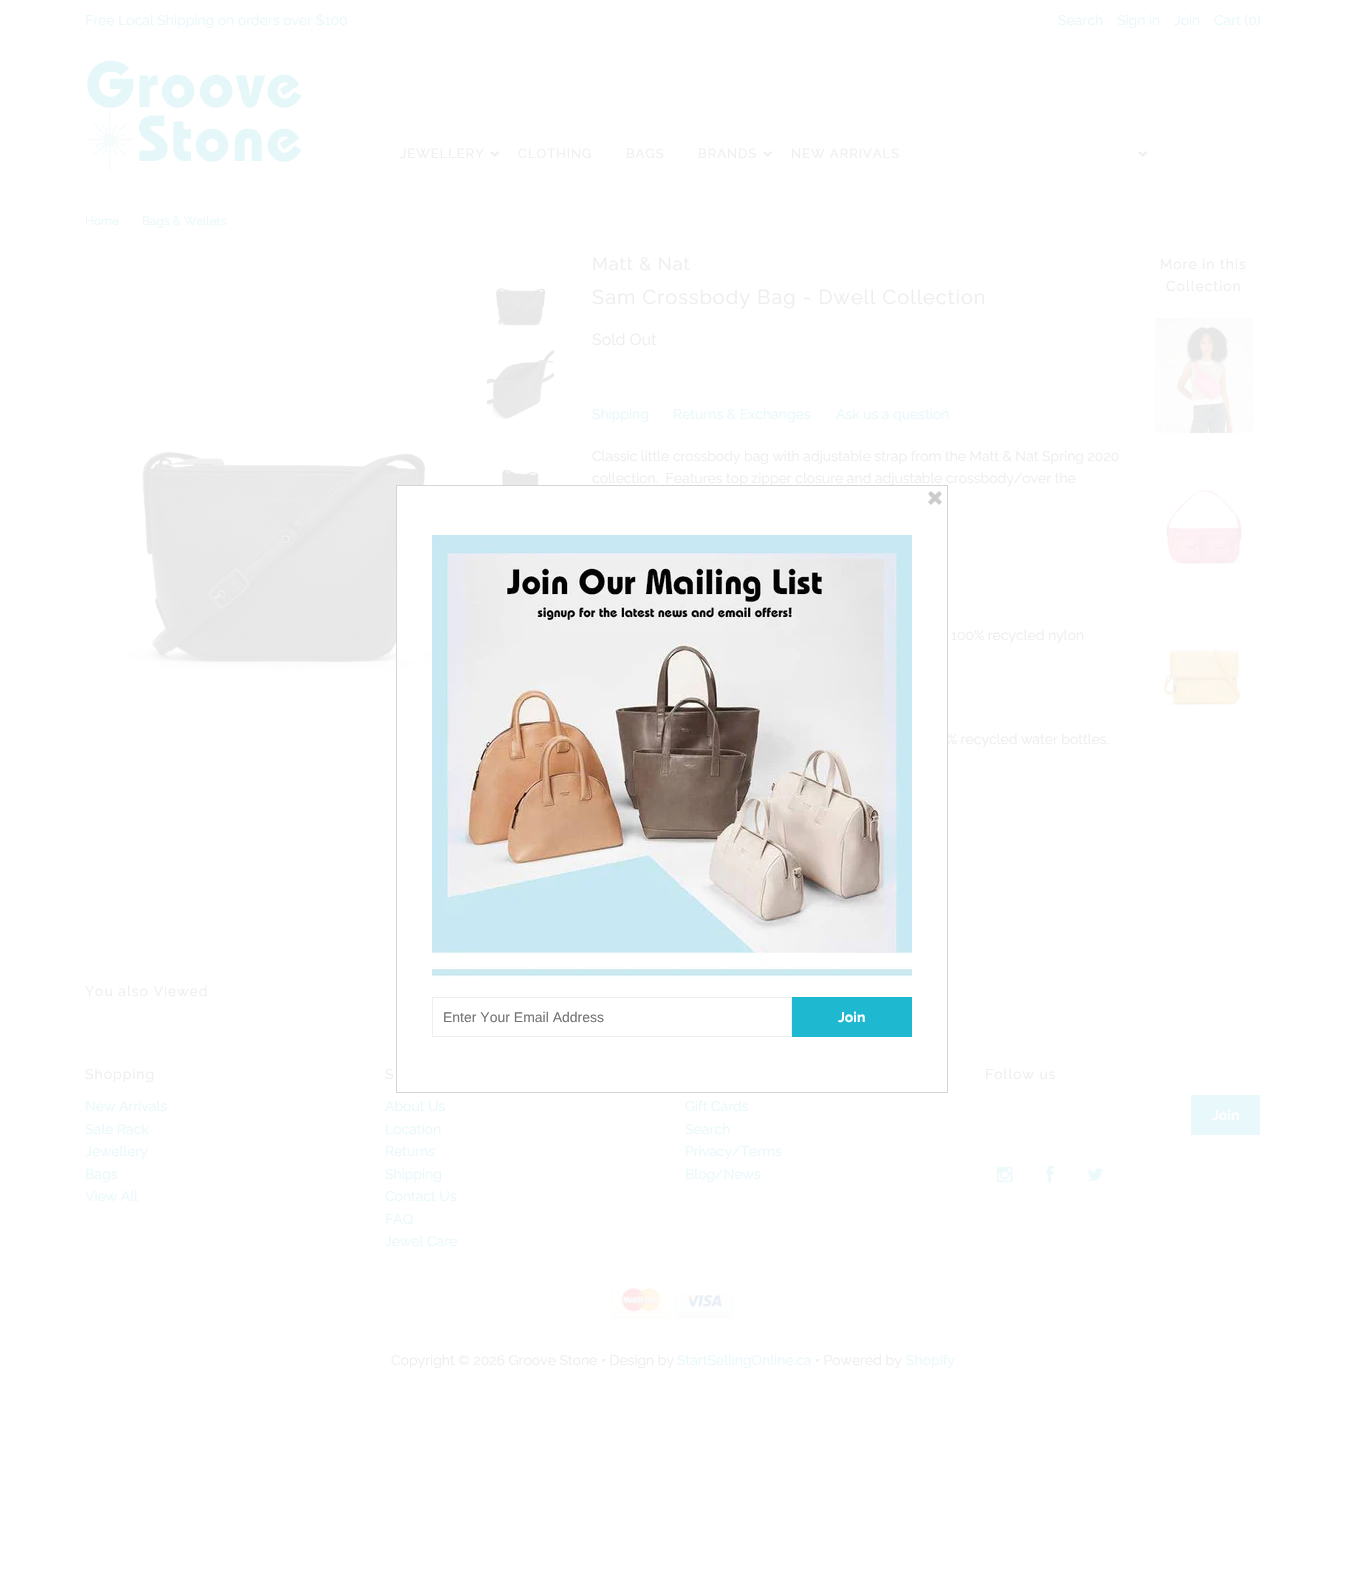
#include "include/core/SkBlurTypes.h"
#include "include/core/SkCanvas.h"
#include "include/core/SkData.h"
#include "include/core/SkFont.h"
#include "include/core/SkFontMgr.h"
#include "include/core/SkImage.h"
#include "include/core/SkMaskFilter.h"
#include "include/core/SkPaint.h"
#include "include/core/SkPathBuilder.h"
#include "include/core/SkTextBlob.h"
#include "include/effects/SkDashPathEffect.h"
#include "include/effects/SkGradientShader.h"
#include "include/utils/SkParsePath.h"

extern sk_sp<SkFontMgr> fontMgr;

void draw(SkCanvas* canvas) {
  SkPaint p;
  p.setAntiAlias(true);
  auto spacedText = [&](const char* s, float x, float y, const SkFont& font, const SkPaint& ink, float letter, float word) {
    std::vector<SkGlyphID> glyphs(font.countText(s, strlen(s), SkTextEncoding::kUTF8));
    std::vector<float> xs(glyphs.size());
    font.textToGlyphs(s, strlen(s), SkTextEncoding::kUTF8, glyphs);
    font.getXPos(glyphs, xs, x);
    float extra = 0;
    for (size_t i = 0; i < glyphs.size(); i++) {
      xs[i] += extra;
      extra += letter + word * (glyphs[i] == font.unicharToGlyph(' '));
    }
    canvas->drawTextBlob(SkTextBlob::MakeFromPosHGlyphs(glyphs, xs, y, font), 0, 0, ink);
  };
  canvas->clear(SK_ColorWHITE);
  canvas->drawImageRect(SkImages::DeferredFromEncodedData(SkData::MakeFromFileName("images/1.png")), SkRect::MakeLTRB(86, 60, 302, 172), SkSamplingOptions());
  canvas->drawImageRect(SkImages::DeferredFromEncodedData(SkData::MakeFromFileName("images/2.png")), SkRect::MakeLTRB(490, 151, 499, 157), SkSamplingOptions());
  canvas->drawImageRect(SkImages::DeferredFromEncodedData(SkData::MakeFromFileName("images/2.png")), SkRect::MakeLTRB(763, 151, 772, 157), SkSamplingOptions());
  canvas->drawImageRect(SkImages::DeferredFromEncodedData(SkData::MakeFromFileName("images/2.png")), SkRect::MakeLTRB(1138, 151, 1147, 157), SkSamplingOptions());
  canvas->drawImageRect(SkImages::DeferredFromEncodedData(SkData::MakeFromFileName("images/3.png")), SkRect::MakeLTRB(494, 288, 548, 327), SkSamplingOptions());
  canvas->drawImageRect(SkImages::DeferredFromEncodedData(SkData::MakeFromFileName("images/4.png")), SkRect::MakeLTRB(487, 349, 554, 420), SkSamplingOptions());
  canvas->drawImageRect(SkImages::DeferredFromEncodedData(SkData::MakeFromFileName("images/5.png")), SkRect::MakeLTRB(124, 452, 446, 674), SkSamplingOptions());
  canvas->drawImageRect(SkImages::DeferredFromEncodedData(SkData::MakeFromFileName("images/6.png")), SkRect::MakeLTRB(501, 469, 539, 485), SkSamplingOptions());
  canvas->drawImageRect(SkImages::DeferredFromEncodedData(SkData::MakeFromFileName("images/7.png")), SkRect::MakeLTRB(1155, 318, 1253, 433), SkSamplingOptions());
  canvas->drawImageRect(SkImages::DeferredFromEncodedData(SkData::MakeFromFileName("images/8.png")), SkRect::MakeLTRB(1165, 489, 1246, 566), SkSamplingOptions());
  canvas->drawImageRect(SkImages::DeferredFromEncodedData(SkData::MakeFromFileName("images/9.png")), SkRect::MakeLTRB(1160, 648, 1242, 708), SkSamplingOptions());
  p.setColor(SkColorSetRGB(233, 248, 250));
  canvas->drawRect(SkRect::MakeLTRB(1191, 1095, 1260, 1135), p);
  canvas->drawImageRect(SkImages::DeferredFromEncodedData(SkData::MakeFromFileName("images/10.png")), SkRect::MakeLTRB(997, 1166, 1013, 1183), SkSamplingOptions());
  canvas->drawImageRect(SkImages::DeferredFromEncodedData(SkData::MakeFromFileName("images/11.png")), SkRect::MakeLTRB(1046, 1165, 1054, 1183), SkSamplingOptions());
  canvas->drawImageRect(SkImages::DeferredFromEncodedData(SkData::MakeFromFileName("images/12.png")), SkRect::MakeLTRB(1087, 1168, 1104, 1181), SkSamplingOptions());
  canvas->drawImageRect(SkImages::DeferredFromEncodedData(SkData::MakeFromFileName("images/13.png")), SkRect::MakeLTRB(611, 1282, 671, 1318), SkSamplingOptions());
  canvas->drawImageRect(SkImages::DeferredFromEncodedData(SkData::MakeFromFileName("images/14.png")), SkRect::MakeLTRB(674, 1282, 734, 1318), SkSamplingOptions());
  p.setColor(SK_ColorWHITE);
  canvas->drawRect(SkRect::MakeLTRB(397, 486, 424, 660), p);
  SkFont font1(fontMgr->matchFamilyStyle("Raleway", SkFontStyle::Normal()), 14);
  font1.setSubpixel(true);
  p.setColor(SkColorSetRGB(233, 248, 250));
  canvas->drawString("Free Local Shipping on orders over $100", 85, 25, font1, p);
  canvas->drawString("Search", 1058, 25, font1, p);
  canvas->drawString("Sign in", 1117, 25, font1, p);
  canvas->drawString("Join", 1174, 25, font1, p);
  canvas->drawString("Cart (0)", 1214, 25, font1, p);
  SkFont font2(fontMgr->matchFamilyStyle("Raleway", SkFontStyle::Normal()), 13);
  font2.setSubpixel(true);
  p.setColor(SkColorSetRGB(238, 238, 238));
  spacedText("JEWELLERY", 400, 158, font2, p, 1, 0);
  spacedText("CLOTHING", 518, 158, font2, p, 1, 0);
  spacedText("BAGS", 626, 158, font2, p, 1, 0);
  spacedText("BRANDS", 698, 158, font2, p, 1, 0);
  spacedText("NEW ARRIVALS", 791, 158, font2, p, 1, 0);
  SkFont font3(fontMgr->matchFamilyStyle("Raleway", SkFontStyle::Normal()), 12);
  font3.setSubpixel(true);
  p.setColor(SkColorSetRGB(233, 248, 250));
  canvas->drawString("Home", 85, 225, font3, p);
  canvas->drawString("Bags & Wallets", 142, 225, font3, p);
  SkFont font4(fontMgr->matchFamilyStyle("Raleway", SkFontStyle::Normal()), 18);
  font4.setSubpixel(true);
  p.setColor(SkColorSetRGB(238, 238, 238));
  spacedText("Matt & Nat", 592, 270, font4, p, 1, 0);
  SkFont font5(fontMgr->matchFamilyStyle("Raleway", SkFontStyle::Normal()), 20);
  font5.setSubpixel(true);
  spacedText("Sam Crossbody Bag - Dwell Collection", 592, 304, font5, p, 1, 0);
  SkFont font6(fontMgr->matchFamilyStyle("Raleway", SkFontStyle::Normal()), 16);
  font6.setSubpixel(true);
  canvas->drawString("Sold Out", 592, 345, font6, p);
  p.setColor(SkColorSetRGB(233, 248, 250));
  canvas->drawString("Shipping", 592, 419, font1, p);
  canvas->drawString("Returns & Exchanges", 673, 419, font1, p);
  canvas->drawString("Ask us a question", 836, 419, font1, p);
  p.setColor(SkColorSetRGB(238, 238, 238));
  canvas->drawString("Classic little crossbody bag with adjustable strap from the Matt & Nat Spring 2020", 592, 461, font1, p);
  canvas->drawString("collection.  Features top zipper closure and adjustable crossbody/over the", 592, 483, font1, p);
  canvas->drawString("100% recycled nylon", 951, 640, font1, p);
  canvas->drawString("% recycled water bottles.", 947, 744, font1, p);
  spacedText("More in this", 1160, 269, font1, p, 1, 0);
  spacedText("Collection", 1166, 291, font1, p, 1, 0);
  spacedText("You also Viewed", 85, 996, font1, p, 1, 0);
  spacedText("Shopping", 85, 1079, font1, p, 1, 0);
  p.setColor(SkColorSetRGB(233, 248, 250));
  canvas->drawString("New Arrivals", 85, 1111, font1, p);
  canvas->drawString("Sale Rack", 85, 1134, font1, p);
  canvas->drawString("Jewellery", 85, 1156, font1, p);
  canvas->drawString("Bags", 85, 1179, font1, p);
  canvas->drawString("View All", 85, 1201, font1, p);
  p.setColor(SkColorSetRGB(238, 238, 238));
  spacedText("S", 385, 1079, font1, p, 1, 0);
  p.setColor(SkColorSetRGB(233, 248, 250));
  canvas->drawString("About Us", 385, 1111, font1, p);
  canvas->drawString("Location", 385, 1134, font1, p);
  canvas->drawString("Returns", 385, 1156, font1, p);
  canvas->drawString("Shipping", 385, 1179, font1, p);
  canvas->drawString("Contact Us", 385, 1201, font1, p);
  canvas->drawString("FAQ", 385, 1224, font1, p);
  canvas->drawString("Jewel Care", 385, 1246, font1, p);
  canvas->drawString("Gift Cards", 685, 1111, font1, p);
  canvas->drawString("Search", 685, 1134, font1, p);
  canvas->drawString("Privacy/Terms", 685, 1156, font1, p);
  canvas->drawString("Blog/News", 685, 1179, font1, p);
  p.setColor(SkColorSetRGB(238, 238, 238));
  spacedText("Follow us", 985, 1079, font1, p, 1, 0);
  SkFont font7(fontMgr->matchFamilyStyle("Raleway", SkFontStyle::Bold()), 14);
  font7.setSubpixel(true);
  p.setColor(SK_ColorWHITE);
  canvas->drawString("Join", 1212, 1120, font7, p);
  p.setColor(SkColorSetRGB(238, 238, 238));
  canvas->drawString("Copyright © 2026 Groove Stone • Design by", 391, 1365, font1, p);
  p.setColor(SkColorSetRGB(233, 248, 250));
  canvas->drawString("StartSellingOnline.ca", 677, 1365, font1, p);
  p.setColor(SkColorSetRGB(238, 238, 238));
  canvas->drawString("• Powered by", 815, 1365, font1, p);
  p.setColor(SkColorSetRGB(233, 248, 250));
  canvas->drawString("Shopify", 906, 1365, font1, p);
  p.setStyle(SkPaint::kStroke_Style);
  p.setStrokeWidth(1);
  p.setColor(SkColorSetRGB(213, 213, 213));
  canvas->drawRect(SkRect::MakeLTRB(396.5f, 485.5f, 947.5f, 1092.5f), p);
  canvas->drawImageRect(SkImages::DeferredFromEncodedData(SkData::MakeFromFileName("images/15.png")), SkRect::MakeLTRB(928, 491, 942, 505), SkSamplingOptions());
  canvas->drawImageRect(SkImages::DeferredFromEncodedData(SkData::MakeFromFileName("images/16.png")), SkRect::MakeLTRB(432, 535, 912, 977), SkSamplingOptions());
  p.setColor(SkColorSetRGB(238, 238, 238));
  canvas->drawRect(SkRect::MakeLTRB(432.5f, 997.5f, 791.5f, 1036.5f), p);
  SkFont font8(fontMgr->matchFamilyStyle("Liberation Sans", SkFontStyle::Normal()), 14);
  font8.setSubpixel(true);
  p.setStyle(SkPaint::kFill_Style);
  p.setColor(SkColorSetRGB(117, 117, 117));
  canvas->drawString("Enter Your Email Address", 443, 1022, font8, p);
  p.setColor(SkColorSetRGB(30, 185, 209));
  canvas->drawRect(SkRect::MakeLTRB(792, 997, 912, 1037), p);
  p.setColor(SK_ColorWHITE);
  canvas->drawString("Join", 838, 1022, font7, p);
}
